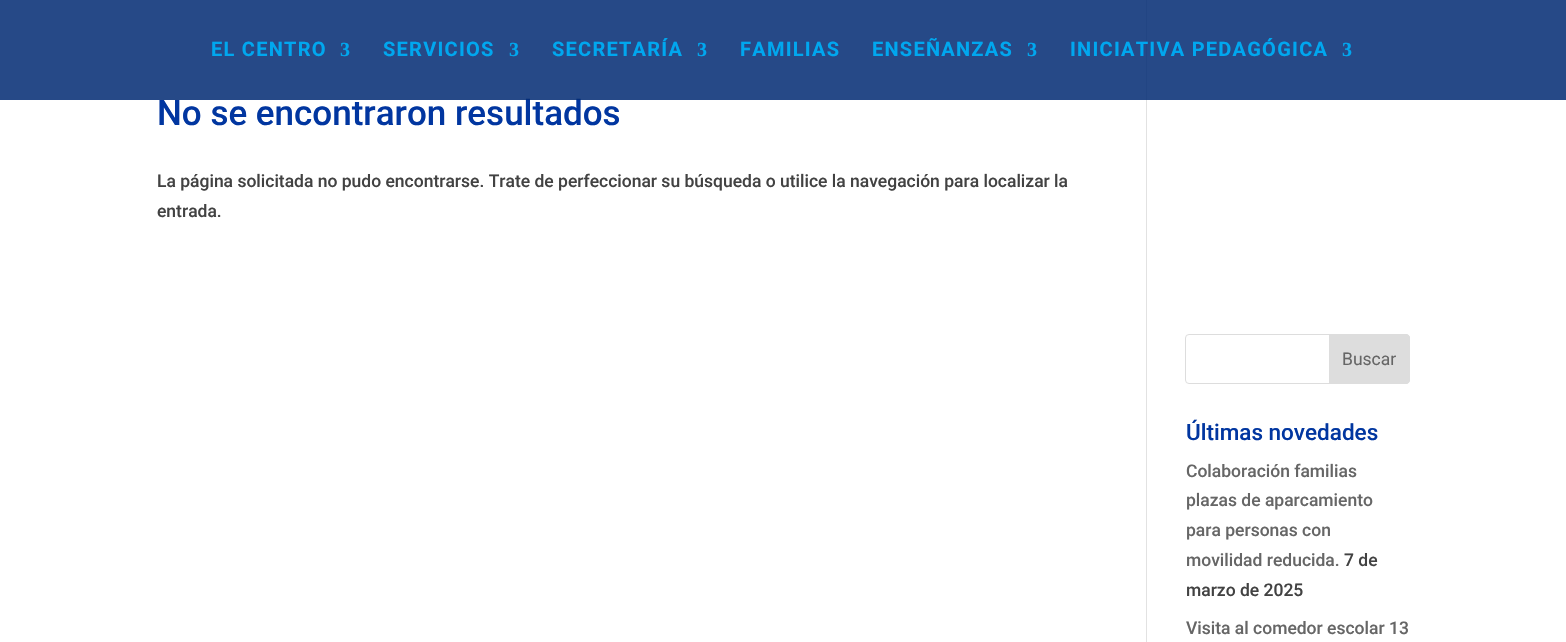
#include "include/core/SkBlurTypes.h"
#include "include/core/SkCanvas.h"
#include "include/core/SkData.h"
#include "include/core/SkFont.h"
#include "include/core/SkFontMgr.h"
#include "include/core/SkImage.h"
#include "include/core/SkMaskFilter.h"
#include "include/core/SkPaint.h"
#include "include/core/SkPathBuilder.h"
#include "include/core/SkTextBlob.h"
#include "include/effects/SkDashPathEffect.h"
#include "include/effects/SkGradientShader.h"
#include "include/utils/SkParsePath.h"

extern sk_sp<SkFontMgr> fontMgr;

void draw(SkCanvas* canvas) {
  SkPaint p;
  p.setAntiAlias(true);
  auto spacedText = [&](const char* s, float x, float y, const SkFont& font, const SkPaint& ink, float letter, float word) {
    std::vector<SkGlyphID> glyphs(font.countText(s, strlen(s), SkTextEncoding::kUTF8));
    std::vector<float> xs(glyphs.size());
    font.textToGlyphs(s, strlen(s), SkTextEncoding::kUTF8, glyphs);
    font.getXPos(glyphs, xs, x);
    float extra = 0;
    for (size_t i = 0; i < glyphs.size(); i++) {
      xs[i] += extra;
      extra += letter + word * (glyphs[i] == font.unicharToGlyph(' '));
    }
    canvas->drawTextBlob(SkTextBlob::MakeFromPosHGlyphs(glyphs, xs, y, font), 0, 0, ink);
  };
  canvas->clear(SK_ColorWHITE);
  p.setColor(SkColorSetRGB(226, 226, 226));
  canvas->drawRect(SkRect::MakeLTRB(1146, 0, 1147, 642), p);
  p.setStyle(SkPaint::kStroke_Style);
  p.setStrokeWidth(1);
  p.setColor(SkColorSetRGB(221, 221, 221));
  canvas->drawRoundRect(SkRect::MakeLTRB(1185.5f, 334.5f, 1409.5f, 383.5f), 3.5f, 3.5f, p);
  p.setStyle(SkPaint::kFill_Style);
  canvas->drawPath(SkPathBuilder().moveTo(1329.5f, 334.5f).lineTo(1406, 334.5f).cubicTo(1408, 334.5f, 1409.5f, 336, 1409.5f, 338).lineTo(1409.5f, 380).cubicTo(1409.5f, 382, 1408, 383.5f, 1406, 383.5f).lineTo(1329.5f, 383.5f).close().detach(), p);
  p.setStyle(SkPaint::kStroke_Style);
  canvas->drawPath(SkPathBuilder().moveTo(1329.5f, 334.5f).lineTo(1406, 334.5f).cubicTo(1408, 334.5f, 1409.5f, 336, 1409.5f, 338).lineTo(1409.5f, 380).cubicTo(1409.5f, 382, 1408, 383.5f, 1406, 383.5f).lineTo(1329.5f, 383.5f).close().detach(), p);
  SkFont font1(fontMgr->matchFamilyStyle("Roboto", SkFontStyle(500, SkFontStyle::kNormal_Width, SkFontStyle::kUpright_Slant)), 35);
  font1.setSubpixel(true);
  p.setStyle(SkPaint::kFill_Style);
  p.setColor(SkColorSetRGB(1, 54, 160));
  canvas->drawString("No se encontraron resultados", 157, 125, font1, p);
  p.setColor(SkColorSetARGB(219, 2, 43, 115));
  canvas->drawRect(SkRect::MakeLTRB(0, 0, 1566, 100), p);
  SkFont font2(fontMgr->matchFamilyStyle("Liberation Serif", SkFontStyle::Bold()), 20);
  font2.setSubpixel(true);
  p.setColor(SkColorSetRGB(0, 167, 239));
  spacedText("3", 1342, 56, font2, p, 1.25f, 0);
  SkFont font3(fontMgr->matchFamilyStyle("Roboto", SkFontStyle::Bold()), 20);
  font3.setSubpixel(true);
  spacedText("INICIATIVA PEDAGÓGICA", 1070, 56, font3, p, 1.25f, 0);
  spacedText("3", 1027, 56, font2, p, 1.25f, 0);
  spacedText("ENSEÑANZAS", 872, 56, font3, p, 1.25f, 0);
  spacedText("FAMILIAS", 740, 56, font3, p, 1.25f, 0);
  spacedText("3", 697, 56, font2, p, 1.25f, 0);
  spacedText("SECRETARÍA", 552, 56, font3, p, 1.25f, 0);
  spacedText("3", 509, 56, font2, p, 1.25f, 0);
  spacedText("SERVICIOS", 383, 56, font3, p, 1.25f, 0);
  spacedText("3", 340, 56, font2, p, 1.25f, 0);
  spacedText("EL CENTRO", 211, 56, font3, p, 1.25f, 0);
  SkFont font4(fontMgr->matchFamilyStyle("Roboto", SkFontStyle(500, SkFontStyle::kNormal_Width, SkFontStyle::kUpright_Slant)), 17.5f);
  font4.setSubpixel(true);
  p.setColor(SkColorSetRGB(66, 66, 66));
  canvas->drawString("La página solicitada no pudo encontrarse. Trate de perfeccionar su búsqueda o utilice la navegación para localizar la", 157, 187, font4, p);
  canvas->drawString("entrada.", 157, 217, font4, p);
  SkFont font5(fontMgr->matchFamilyStyle("Roboto", SkFontStyle::Normal()), 17.5f);
  font5.setSubpixel(true);
  p.setColor(SkColorSetRGB(102, 102, 102));
  canvas->drawString("Buscar", 1342, 365, font5, p);
  SkFont font6(fontMgr->matchFamilyStyle("Roboto", SkFontStyle(500, SkFontStyle::kNormal_Width, SkFontStyle::kUpright_Slant)), 22.5f);
  font6.setSubpixel(true);
  p.setColor(SkColorSetRGB(1, 54, 160));
  canvas->drawString("Últimas novedades", 1186, 440, font6, p);
  p.setColor(SkColorSetRGB(102, 102, 102));
  canvas->drawString("Colaboración familias", 1186, 477, font4, p);
  canvas->drawString("plazas de aparcamiento", 1186, 506, font4, p);
  canvas->drawString("para personas con", 1186, 536, font4, p);
  canvas->drawString("movilidad reducida.", 1186, 566, font4, p);
  p.setColor(SkColorSetRGB(66, 66, 66));
  canvas->drawString("7 de", 1344, 566, font4, p);
  canvas->drawString("marzo de 2025", 1186, 596, font4, p);
  p.setColor(SkColorSetRGB(102, 102, 102));
  canvas->drawString("Visita al comedor escolar 13", 1186, 634, font4, p);
}
